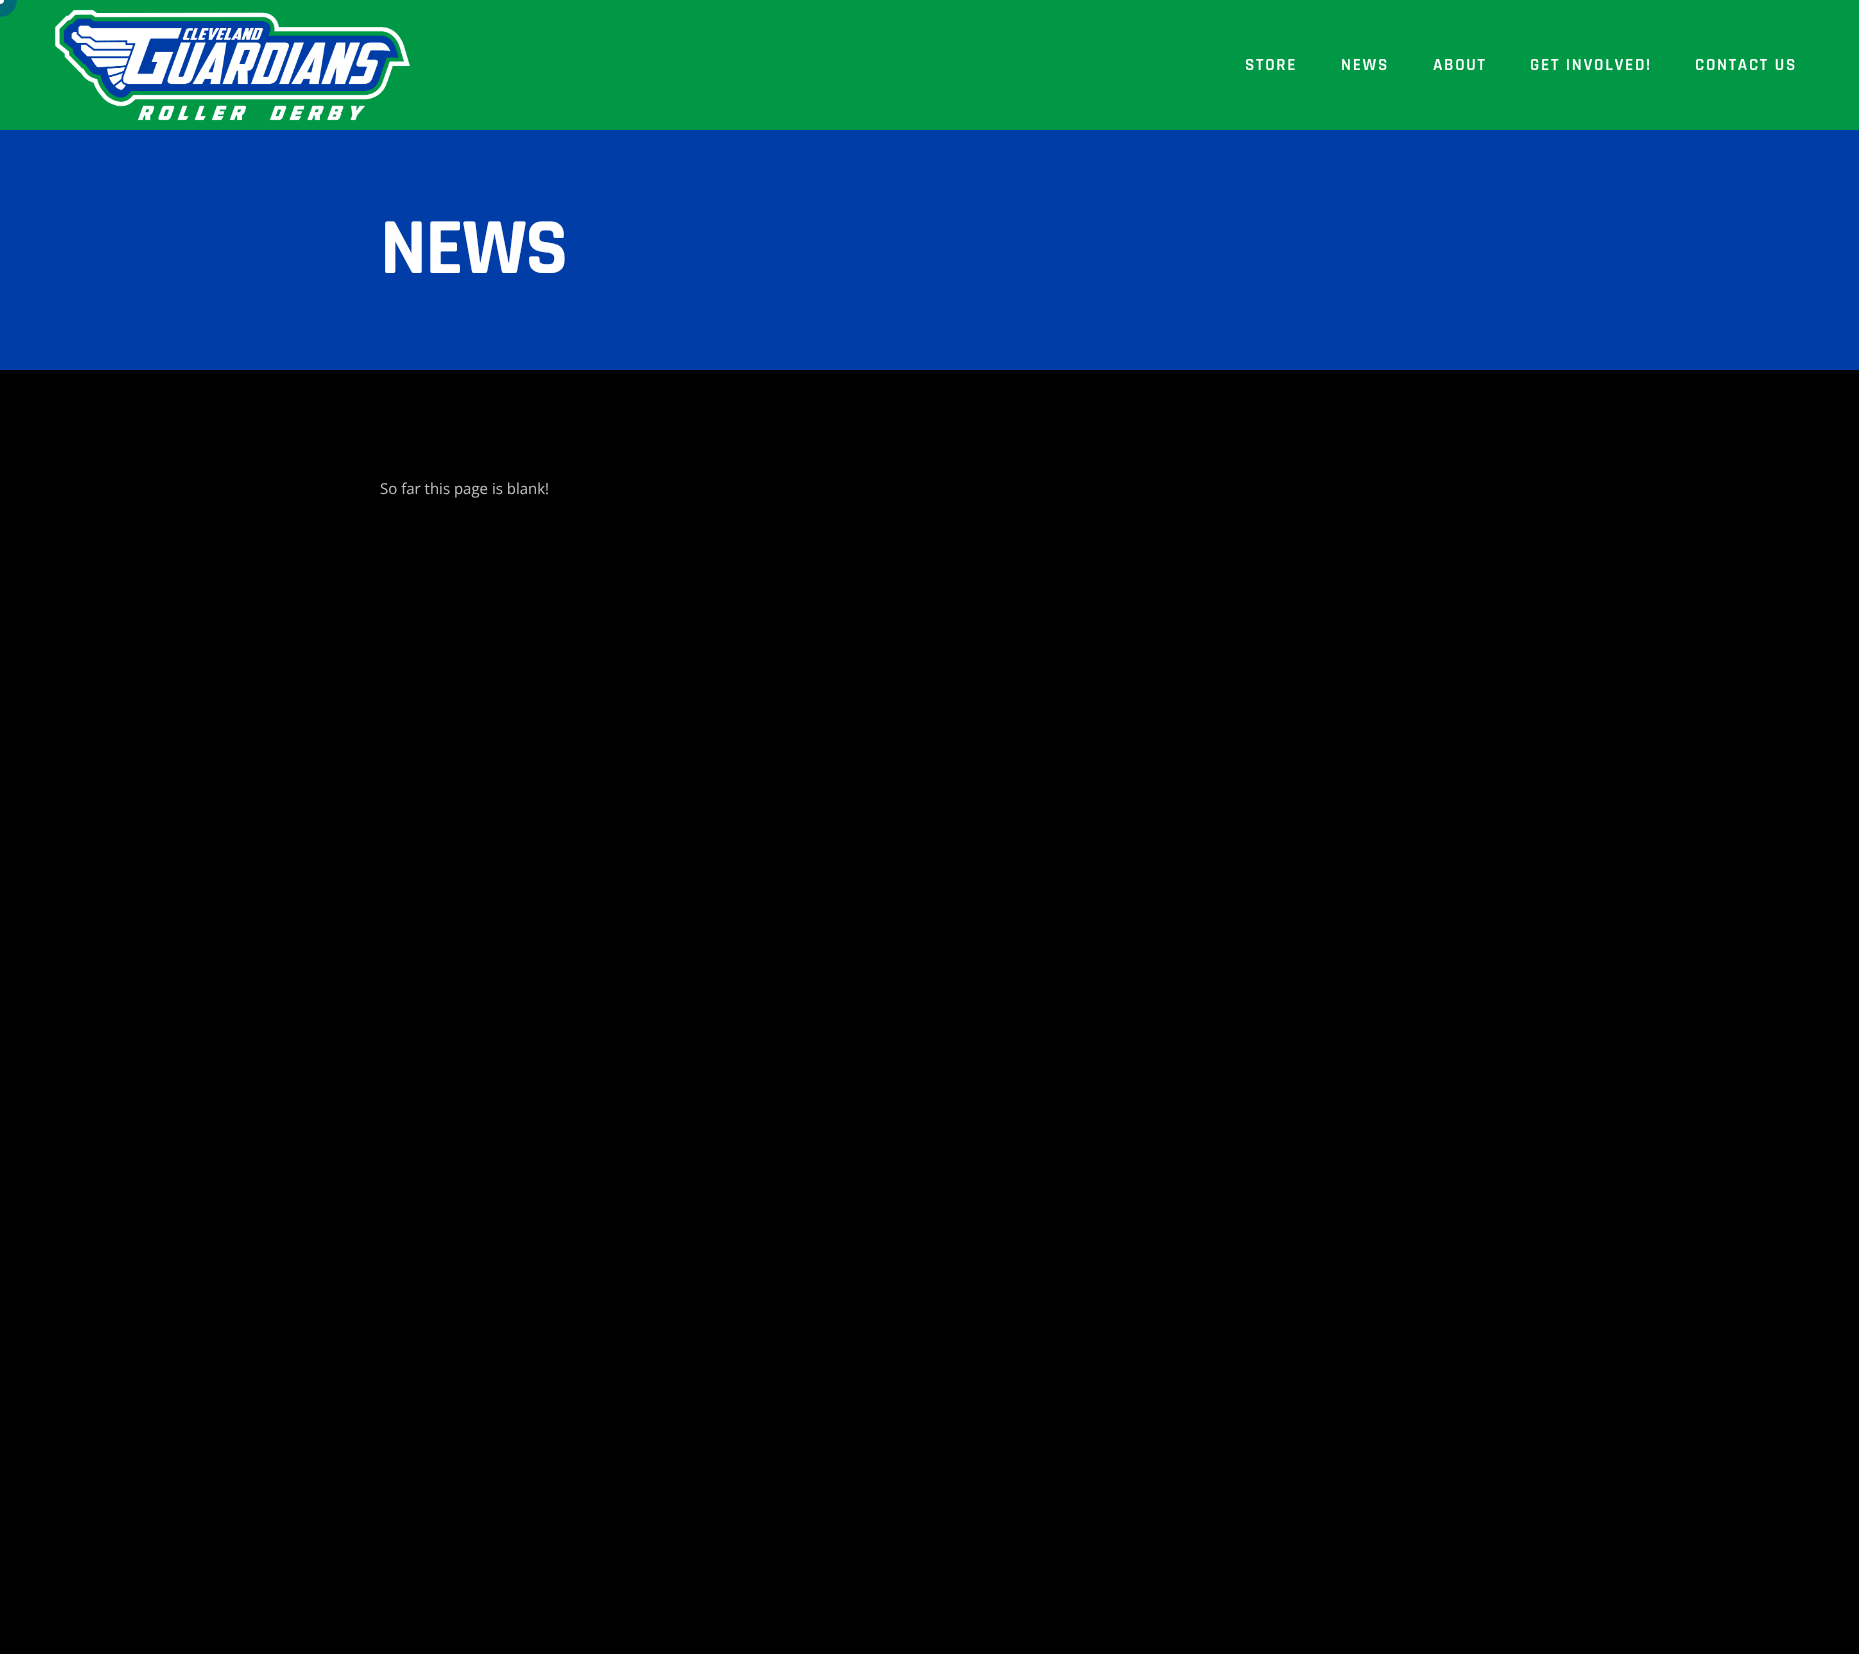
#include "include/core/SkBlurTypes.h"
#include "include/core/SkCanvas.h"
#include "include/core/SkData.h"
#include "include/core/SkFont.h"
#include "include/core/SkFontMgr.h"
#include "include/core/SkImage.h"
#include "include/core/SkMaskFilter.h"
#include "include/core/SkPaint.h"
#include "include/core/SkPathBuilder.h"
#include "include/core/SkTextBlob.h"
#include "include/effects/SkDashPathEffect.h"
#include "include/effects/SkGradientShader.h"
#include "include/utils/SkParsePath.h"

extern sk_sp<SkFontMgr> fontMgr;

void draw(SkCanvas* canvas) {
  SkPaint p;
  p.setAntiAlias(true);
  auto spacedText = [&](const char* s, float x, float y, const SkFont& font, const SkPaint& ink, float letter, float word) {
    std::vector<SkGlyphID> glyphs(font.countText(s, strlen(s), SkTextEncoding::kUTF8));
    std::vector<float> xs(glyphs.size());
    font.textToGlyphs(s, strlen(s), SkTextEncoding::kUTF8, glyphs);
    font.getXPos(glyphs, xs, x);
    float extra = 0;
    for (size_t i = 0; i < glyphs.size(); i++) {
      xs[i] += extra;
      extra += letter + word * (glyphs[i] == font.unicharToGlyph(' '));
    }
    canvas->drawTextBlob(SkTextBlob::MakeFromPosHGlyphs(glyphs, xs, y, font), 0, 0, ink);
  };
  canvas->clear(SK_ColorBLACK);
  p.setColor(SkColorSetRGB(0, 152, 69));
  canvas->drawRect(SkRect::MakeLTRB(0, 0, 1859, 130), p);
  p.setColor(SkColorSetRGB(0, 107, 118));
  canvas->drawCircle(0, 0, 17, p);
  p.setColor(SK_ColorWHITE);
  canvas->drawCircle(0, 0, 4, p);
  canvas->drawImageRect(SkImages::DeferredFromEncodedData(SkData::MakeFromFileName("images/1.png")), SkRect::MakeLTRB(54, 9, 411, 121), SkSamplingOptions());
  p.setColor(SkColorSetRGB(0, 61, 166));
  canvas->drawRect(SkRect::MakeLTRB(0, 130, 1859, 370), p);
  SkFont font1(fontMgr->matchFamilyStyle("Rajdhani", SkFontStyle(600, SkFontStyle::kNormal_Width, SkFontStyle::kUpright_Slant)), 17);
  font1.setSubpixel(true);
  p.setColor(SK_ColorWHITE);
  spacedText("STORE", 1245, 70, font1, p, 1.75f, 0);
  spacedText("NEWS", 1341, 70, font1, p, 1.75f, 0);
  spacedText("ABOUT", 1433, 70, font1, p, 1.75f, 0);
  spacedText("GET INVOLVED!", 1530, 70, font1, p, 1.75f, 0);
  spacedText("CONTACT US", 1695, 70, font1, p, 1.75f, 0);
  SkFont font2(fontMgr->matchFamilyStyle("Rajdhani", SkFontStyle::Bold()), 80);
  font2.setSubpixel(true);
  spacedText("NEWS", 380, 273, font2, p, -1.5f, 0);
  SkFont font3(fontMgr->matchFamilyStyle("Open Sans", SkFontStyle::Normal()), 15);
  font3.setSubpixel(true);
  p.setColor(SkColorSetRGB(186, 185, 187));
  canvas->drawString("So far this page is blank!", 380, 494, font3, p);
}
